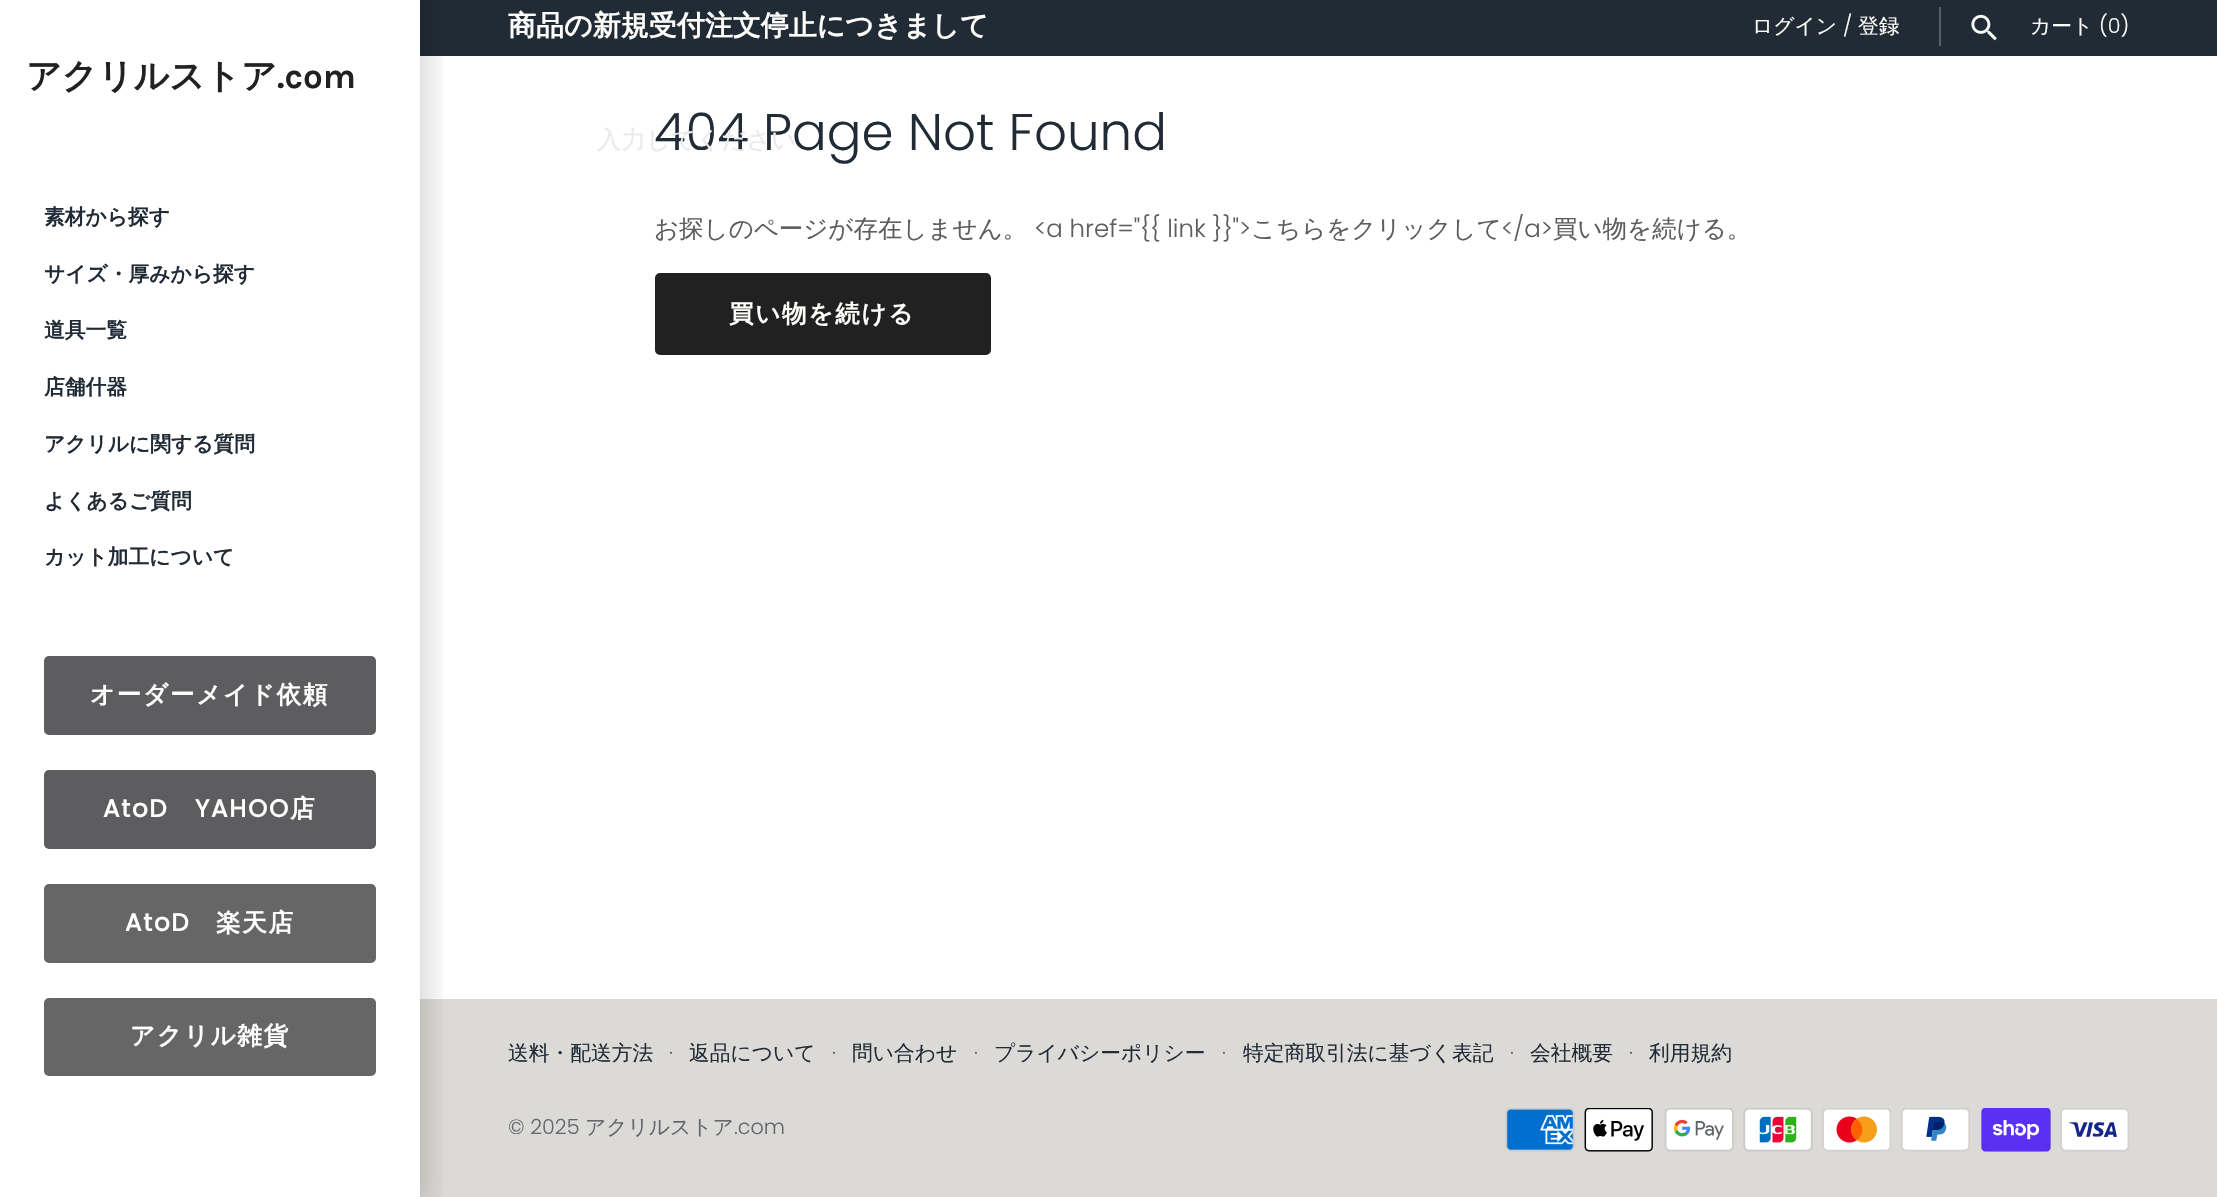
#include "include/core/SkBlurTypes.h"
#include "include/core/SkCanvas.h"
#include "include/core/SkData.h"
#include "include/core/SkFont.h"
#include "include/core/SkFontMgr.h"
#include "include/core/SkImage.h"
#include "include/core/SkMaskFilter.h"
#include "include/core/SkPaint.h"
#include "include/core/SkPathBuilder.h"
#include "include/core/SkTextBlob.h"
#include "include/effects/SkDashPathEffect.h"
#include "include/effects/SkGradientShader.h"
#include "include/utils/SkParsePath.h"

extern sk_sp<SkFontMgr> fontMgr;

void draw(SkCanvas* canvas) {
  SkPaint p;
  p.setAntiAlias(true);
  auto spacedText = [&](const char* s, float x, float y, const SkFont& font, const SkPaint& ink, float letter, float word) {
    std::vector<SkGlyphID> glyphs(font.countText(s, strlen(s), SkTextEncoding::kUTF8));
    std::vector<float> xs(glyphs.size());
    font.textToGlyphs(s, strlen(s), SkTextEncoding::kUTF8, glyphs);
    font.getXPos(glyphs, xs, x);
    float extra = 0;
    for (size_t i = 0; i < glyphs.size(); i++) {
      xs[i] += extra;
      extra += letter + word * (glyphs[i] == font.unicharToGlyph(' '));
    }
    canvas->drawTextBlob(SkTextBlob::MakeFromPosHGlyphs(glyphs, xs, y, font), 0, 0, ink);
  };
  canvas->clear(SK_ColorWHITE);
  p.setColor(SkColorSetRGB(33, 43, 54));
  canvas->drawRect(SkRect::MakeLTRB(420, 0, 2217, 56), p);
  p.setColor(SkColorSetRGB(219, 218, 215));
  canvas->drawRect(SkRect::MakeLTRB(420, 999, 2217, 1197), p);
  canvas->save();
  canvas->clipRect(SkRect::MakeLTRB(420, 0, 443, 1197));
  p.setColor(SkColorSetARGB(38, 0, 0, 0));
  p.setMaskFilter(SkMaskFilter::MakeBlur(kNormal_SkBlurStyle, 13));
  canvas->drawRect(SkRect::MakeLTRB(-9, -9, 429, 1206), p);
  p.setMaskFilter(nullptr);
  canvas->restore();
  p.setColor(SkColorSetRGB(93, 93, 96));
  canvas->drawRoundRect(SkRect::MakeLTRB(44, 656, 376, 735), 5, 5, p);
  canvas->drawRoundRect(SkRect::MakeLTRB(44, 770, 376, 849), 5, 5, p);
  p.setColor(SkColorSetRGB(102, 102, 102));
  canvas->drawRoundRect(SkRect::MakeLTRB(44, 884, 376, 963), 5, 5, p);
  canvas->drawRoundRect(SkRect::MakeLTRB(44, 998, 376, 1076), 5, 5, p);
  p.setColor(SkColorSetRGB(87, 95, 102));
  canvas->drawRect(SkRect::MakeLTRB(1939, 7, 1941, 46), p);
  canvas->drawImageRect(SkImages::DeferredFromEncodedData(SkData::MakeFromFileName("images/1.png")), SkRect::MakeLTRB(1971, 14, 1997, 41), SkSamplingOptions());
  p.setColor(SkColorSetRGB(33, 33, 33));
  canvas->drawRoundRect(SkRect::MakeLTRB(656, 274, 990, 354), 4, 4, p);
  p.setStyle(SkPaint::kStroke_Style);
  p.setStrokeWidth(2);
  canvas->drawRoundRect(SkRect::MakeLTRB(656, 274, 990, 354), 4, 4, p);
  canvas->drawImageRect(SkImages::DeferredFromEncodedData(SkData::MakeFromFileName("images/2.png")), SkRect::MakeLTRB(1505, 1108, 1575, 1152), SkSamplingOptions());
  canvas->drawImageRect(SkImages::DeferredFromEncodedData(SkData::MakeFromFileName("images/3.png")), SkRect::MakeLTRB(1584, 1108, 1653, 1152), SkSamplingOptions());
  canvas->drawImageRect(SkImages::DeferredFromEncodedData(SkData::MakeFromFileName("images/4.png")), SkRect::MakeLTRB(1664, 1108, 1734, 1152), SkSamplingOptions());
  canvas->drawImageRect(SkImages::DeferredFromEncodedData(SkData::MakeFromFileName("images/5.png")), SkRect::MakeLTRB(1743, 1108, 1813, 1152), SkSamplingOptions());
  canvas->drawImageRect(SkImages::DeferredFromEncodedData(SkData::MakeFromFileName("images/6.png")), SkRect::MakeLTRB(1822, 1108, 1891, 1152), SkSamplingOptions());
  canvas->drawImageRect(SkImages::DeferredFromEncodedData(SkData::MakeFromFileName("images/7.png")), SkRect::MakeLTRB(1901, 1108, 1970, 1152), SkSamplingOptions());
  canvas->drawImageRect(SkImages::DeferredFromEncodedData(SkData::MakeFromFileName("images/8.png")), SkRect::MakeLTRB(1981, 1108, 2051, 1152), SkSamplingOptions());
  canvas->drawImageRect(SkImages::DeferredFromEncodedData(SkData::MakeFromFileName("images/9.png")), SkRect::MakeLTRB(2060, 1108, 2129, 1152), SkSamplingOptions());
  SkFont font1(fontMgr->matchFamilyStyle("WenQuanYi Zen Hei", SkFontStyle::Bold()), 35);
  font1.setSubpixel(true);
  p.setStyle(SkPaint::kFill_Style);
  canvas->drawString("アクリルストア", 26, 88, font1, p);
  SkFont font2(fontMgr->matchFamilyStyle("Karla", SkFontStyle::Bold()), 35);
  font2.setSubpixel(true);
  canvas->drawString(".com", 277, 88, font2, p);
  SkFont font3(fontMgr->matchFamilyStyle("WenQuanYi Zen Hei", SkFontStyle::Bold()), 20.75f);
  font3.setSubpixel(true);
  p.setColor(SkColorSetRGB(33, 43, 54));
  canvas->drawString("素材から探す", 44, 224, font3, p);
  canvas->drawString("サイズ・厚みから探す", 44, 281, font3, p);
  canvas->drawString("道具一覧", 44, 337, font3, p);
  canvas->drawString("店舗什器", 44, 394, font3, p);
  canvas->drawString("アクリルに関する質問", 44, 451, font3, p);
  canvas->drawString("よくあるご質問", 44, 508, font3, p);
  canvas->drawString("カット加工について", 44, 564, font3, p);
  SkFont font4(fontMgr->matchFamilyStyle("WenQuanYi Zen Hei", SkFontStyle::Bold()), 24.5f);
  font4.setSubpixel(true);
  p.setColor(SK_ColorWHITE);
  spacedText("オーダーメイド依頼", 90, 703, font4, p, 1.75f, 0);
  SkFont font5(fontMgr->matchFamilyStyle("Poppins", SkFontStyle::Bold()), 24.5f);
  font5.setSubpixel(true);
  spacedText("AtoD", 103, 817, font5, p, 1.75f, 0);
  spacedText("YAHOO", 195, 817, font5, p, 1.75f, 0);
  spacedText("店", 290, 817, font4, p, 1.75f, 0);
  spacedText("AtoD", 125, 931, font5, p, 1.75f, 0);
  spacedText("楽天店", 216, 931, font4, p, 1.75f, 0);
  spacedText("アクリル雑貨", 130, 1044, font4, p, 1.75f, 0);
  SkFont font6(fontMgr->matchFamilyStyle("WenQuanYi Zen Hei", SkFontStyle::Bold()), 28);
  font6.setSubpixel(true);
  p.setColor(SkColorSetRGB(253, 253, 249));
  canvas->drawString("商品の新規受付注文停止につきまして", 508, 35, font6, p);
  SkFont font7(fontMgr->matchFamilyStyle("WenQuanYi Zen Hei", SkFontStyle(500, SkFontStyle::kNormal_Width, SkFontStyle::kUpright_Slant)), 20.75f);
  font7.setSubpixel(true);
  canvas->drawString("ログイン", 1752, 33, font7, p);
  SkFont font8(fontMgr->matchFamilyStyle("Poppins", SkFontStyle(300, SkFontStyle::kNormal_Width, SkFontStyle::kUpright_Slant)), 20.75f);
  font8.setSubpixel(true);
  canvas->drawString("/", 1843, 33, font8, p);
  canvas->drawString("登録", 1858, 33, font7, p);
  canvas->drawString("カート", 2030, 33, font7, p);
  canvas->drawString("(0)", 2099, 33, font8, p);
  SkFont font9(fontMgr->matchFamilyStyle("Poppins", SkFontStyle(300, SkFontStyle::kNormal_Width, SkFontStyle::kUpright_Slant)), 51.5f);
  font9.setSubpixel(true);
  p.setColor(SkColorSetRGB(33, 43, 54));
  canvas->drawString("404 Page Not Found", 654, 150, font9, p);
  SkFont font10(fontMgr->matchFamilyStyle("WenQuanYi Zen Hei", SkFontStyle(500, SkFontStyle::kNormal_Width, SkFontStyle::kUpright_Slant)), 24.5f);
  font10.setSubpixel(true);
  p.setColor(SkColorSetRGB(233, 234, 235));
  canvas->drawString("入力してください", 597, 148, font10, p);
  p.setColor(SkColorSetRGB(93, 93, 96));
  canvas->drawString("お探しのページが存在しません。", 654, 237, font10, p);
  SkFont font11(fontMgr->matchFamilyStyle("Poppins", SkFontStyle(300, SkFontStyle::kNormal_Width, SkFontStyle::kUpright_Slant)), 24.5f);
  font11.setSubpixel(true);
  canvas->drawString("<a href=\"{{ link }}\">", 1034, 237, font11, p);
  canvas->drawString("こちらをクリックして", 1251, 237, font10, p);
  canvas->drawString("</a>", 1501, 237, font11, p);
  canvas->drawString("買い物を続ける。", 1553, 237, font10, p);
  p.setColor(SkColorSetRGB(253, 253, 249));
  spacedText("買い物を続ける", 729, 322, font4, p, 1.75f, 0);
  p.setColor(SkColorSetRGB(33, 43, 54));
  canvas->drawString("送料・配送方法", 508, 1060, font7, p);
  p.setColor(SkColorSetRGB(98, 104, 110));
  canvas->drawString("·", 669, 1060, font8, p);
  p.setColor(SkColorSetRGB(33, 43, 54));
  canvas->drawString("返品について", 689, 1060, font7, p);
  p.setColor(SkColorSetRGB(98, 104, 110));
  canvas->drawString("·", 832, 1060, font8, p);
  p.setColor(SkColorSetRGB(33, 43, 54));
  canvas->drawString("問い合わせ", 852, 1060, font7, p);
  p.setColor(SkColorSetRGB(98, 104, 110));
  canvas->drawString("·", 974, 1060, font8, p);
  p.setColor(SkColorSetRGB(33, 43, 54));
  canvas->drawString("プライバシーポリシー", 994, 1060, font7, p);
  p.setColor(SkColorSetRGB(98, 104, 110));
  canvas->drawString("·", 1222, 1060, font8, p);
  p.setColor(SkColorSetRGB(33, 43, 54));
  canvas->drawString("特定商取引法に基づく表記", 1243, 1060, font7, p);
  p.setColor(SkColorSetRGB(98, 104, 110));
  canvas->drawString("·", 1510, 1060, font8, p);
  p.setColor(SkColorSetRGB(33, 43, 54));
  canvas->drawString("会社概要", 1530, 1060, font7, p);
  p.setColor(SkColorSetRGB(98, 104, 110));
  canvas->drawString("·", 1629, 1060, font8, p);
  p.setColor(SkColorSetRGB(33, 43, 54));
  canvas->drawString("利用規約", 1649, 1060, font7, p);
  p.setColor(SkColorSetRGB(98, 104, 110));
  canvas->drawString("© 2025", 508, 1134, font8, p);
  canvas->drawString("アクリルストア", 585, 1134, font7, p);
  canvas->drawString(".com", 734, 1134, font8, p);
}
